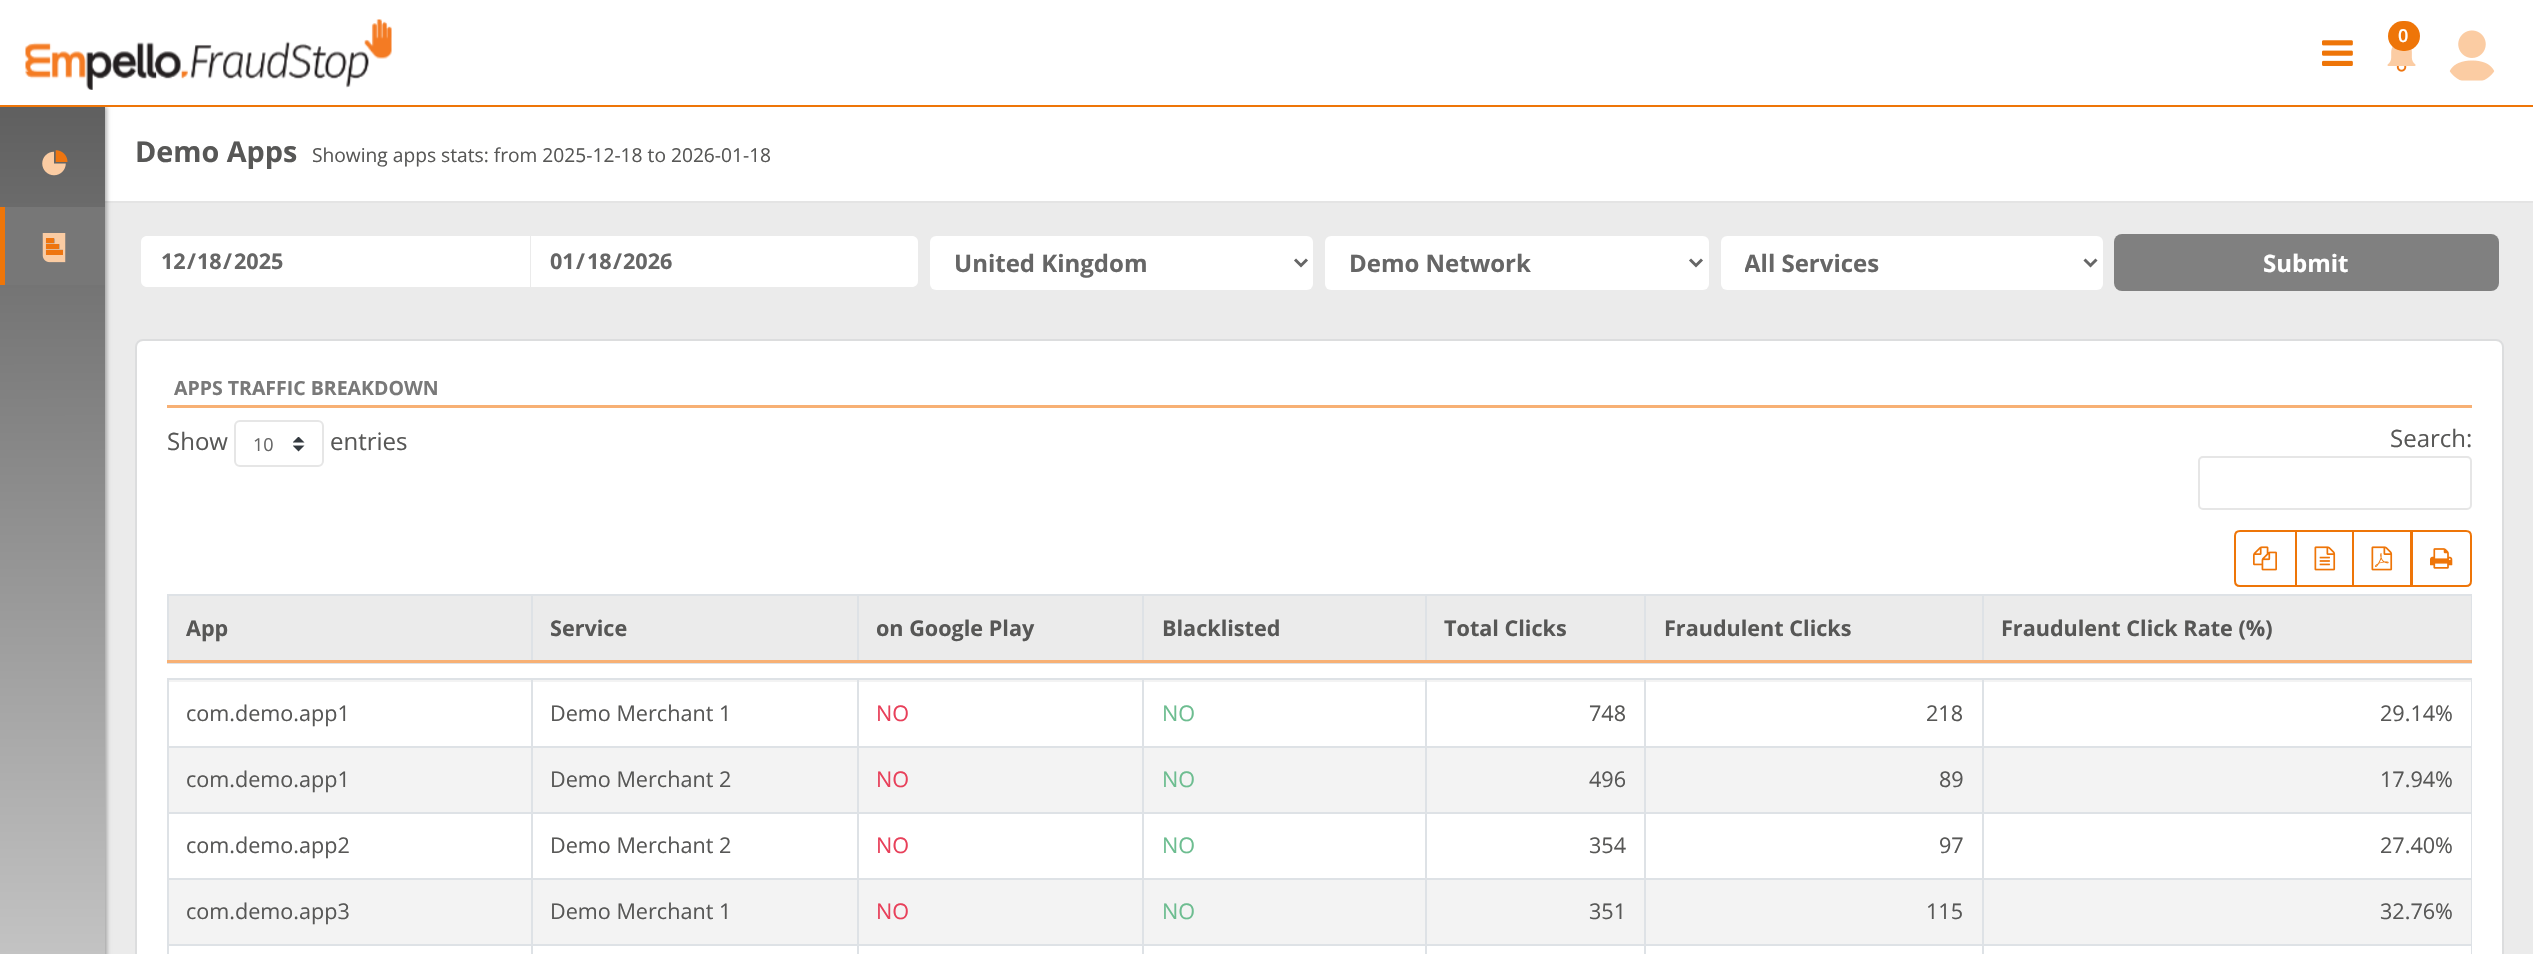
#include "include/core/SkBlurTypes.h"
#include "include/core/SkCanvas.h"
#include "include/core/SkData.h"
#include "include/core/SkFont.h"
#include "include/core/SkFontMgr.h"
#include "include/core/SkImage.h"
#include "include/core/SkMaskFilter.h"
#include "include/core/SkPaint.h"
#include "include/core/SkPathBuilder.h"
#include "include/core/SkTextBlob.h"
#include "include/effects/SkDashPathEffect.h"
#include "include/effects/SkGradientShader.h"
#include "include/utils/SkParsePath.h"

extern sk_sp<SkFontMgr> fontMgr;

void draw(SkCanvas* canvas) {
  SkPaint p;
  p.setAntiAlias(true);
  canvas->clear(SkColorSetRGB(235, 235, 235));
  p.setColor(SkColorSetRGB(228, 228, 228));
  canvas->drawPath(SkPathBuilder().moveTo(105, 201).lineTo(105, 203).lineTo(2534, 203).lineTo(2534, 107).lineTo(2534, 201).close().detach(), p);
  p.setColor(SK_ColorWHITE);
  canvas->drawRect(SkRect::MakeLTRB(105, 107, 2533, 201), p);
  p.setColor(SkColorSetARGB(77, 0, 0, 0));
  p.setMaskFilter(SkMaskFilter::MakeBlur(kNormal_SkBlurStyle, 2));
  canvas->drawRect(SkRect::MakeLTRB(2, 107, 107, 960), p);
  p.setMaskFilter(nullptr);
  p.setColor(SK_ColorWHITE);
  canvas->drawRect(SkRect::MakeLTRB(0, 0, 2533, 105), p);
  p.setColor(SkColorSetRGB(238, 117, 8));
  canvas->drawRect(SkRect::MakeLTRB(0, 105, 2533, 107), p);
  canvas->drawImageRect(SkImages::DeferredFromEncodedData(SkData::MakeFromFileName("images/1.png")), SkRect::MakeLTRB(25, 19, 392, 90), SkSamplingOptions());
  canvas->drawImageRect(SkImages::DeferredFromEncodedData(SkData::MakeFromFileName("images/2.png")), SkRect::MakeLTRB(2322, 40, 2353, 66), SkSamplingOptions());
  canvas->drawImageRect(SkImages::DeferredFromEncodedData(SkData::MakeFromFileName("images/3.png")), SkRect::MakeLTRB(2387, 46, 2416, 72), SkSamplingOptions());
  canvas->drawRoundRect(SkRect::MakeLTRB(2388, 21, 2420, 51), 15, 15, p);
  canvas->drawImageRect(SkImages::DeferredFromEncodedData(SkData::MakeFromFileName("images/4.png")), SkRect::MakeLTRB(2449, 30, 2495, 81), SkSamplingOptions());
  {
    const SkColor colors[] = {SkColorSetRGB(95, 95, 95), SkColorSetRGB(235, 235, 235)};
    const float stops[] = {0, 1};
    const SkPoint ends[] = {{52, 105}, {53, 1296}};
    p.setShader(SkGradientShader::MakeLinear(ends, colors, stops, 2, SkTileMode::kClamp));
    p.setAlpha(255);
  }
  canvas->drawRect(SkRect::MakeLTRB(0, 107, 105, 954), p);
  canvas->drawImageRect(SkImages::DeferredFromEncodedData(SkData::MakeFromFileName("images/5.png")), SkRect::MakeLTRB(42, 150, 68, 176), SkSamplingOptions());
  p.setShader(nullptr);
  p.setColor(SkColorSetRGB(119, 119, 119));
  canvas->drawRect(SkRect::MakeLTRB(5, 207, 105, 285), p);
  p.setColor(SkColorSetRGB(238, 117, 8));
  canvas->drawRect(SkRect::MakeLTRB(0, 207, 5, 285), p);
  canvas->drawImageRect(SkImages::DeferredFromEncodedData(SkData::MakeFromFileName("images/6.png")), SkRect::MakeLTRB(42, 233, 66, 263), SkSamplingOptions());
  p.setColor(SK_ColorWHITE);
  canvas->drawPath(SkPathBuilder().moveTo(147, 236).lineTo(530, 236).lineTo(530, 287).lineTo(147, 287).cubicTo(143.5f, 287, 141, 284.5f, 141, 281).lineTo(141, 242).cubicTo(141, 238.5f, 143.5f, 236, 147, 236).close().detach(), p);
  canvas->drawPath(SkPathBuilder().moveTo(531, 236).lineTo(912, 236).cubicTo(915.5f, 236, 918, 238.5f, 918, 242).lineTo(918, 281).cubicTo(918, 284.5f, 915.5f, 287, 912, 287).lineTo(531, 287).close().detach(), p);
  canvas->drawRoundRect(SkRect::MakeLTRB(930, 236, 1313, 290), 6, 6, p);
  p.setStyle(SkPaint::kStroke_Style);
  p.setStrokeWidth(3);
  p.setColor(SkColorSetRGB(102, 102, 102));
  canvas->drawPath(SkPathBuilder().moveTo(1295, 259.5f).lineTo(1301, 265.5f).lineTo(1307, 259.5f).detach(), p);
  p.setStyle(SkPaint::kFill_Style);
  p.setColor(SK_ColorWHITE);
  canvas->drawRoundRect(SkRect::MakeLTRB(1325, 236, 1709, 290), 6, 6, p);
  p.setStyle(SkPaint::kStroke_Style);
  p.setColor(SkColorSetRGB(102, 102, 102));
  canvas->drawPath(SkPathBuilder().moveTo(1690, 259.5f).lineTo(1696, 265.5f).lineTo(1702, 259.5f).detach(), p);
  p.setStyle(SkPaint::kFill_Style);
  p.setColor(SK_ColorWHITE);
  canvas->drawRoundRect(SkRect::MakeLTRB(1721, 236, 2103, 290), 6, 6, p);
  p.setStyle(SkPaint::kStroke_Style);
  p.setColor(SkColorSetRGB(102, 102, 102));
  canvas->drawPath(SkPathBuilder().moveTo(2084.5f, 259.5f).lineTo(2090.5f, 265.5f).lineTo(2096.5f, 259.5f).detach(), p);
  p.setStyle(SkPaint::kFill_Style);
  p.setColor(SkColorSetRGB(128, 128, 128));
  canvas->drawRoundRect(SkRect::MakeLTRB(2114, 234, 2499, 291), 8, 8, p);
  p.setColor(SK_ColorWHITE);
  canvas->drawRoundRect(SkRect::MakeLTRB(137, 341, 2502, 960), 6, 6, p);
  p.setStyle(SkPaint::kStroke_Style);
  p.setStrokeWidth(2);
  p.setColor(SkColorSetARGB(20, 54, 64, 74));
  canvas->drawRoundRect(SkRect::MakeLTRB(136, 340, 2503, 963), 7, 7, p);
  p.setStyle(SkPaint::kFill_Style);
  p.setColor(SkColorSetRGB(247, 176, 116));
  canvas->drawRect(SkRect::MakeLTRB(167, 405, 2472, 408), p);
  canvas->drawImageRect(SkImages::DeferredFromEncodedData(SkData::MakeFromFileName("images/7.png")), SkRect::MakeLTRB(293, 437, 305, 452), SkSamplingOptions());
  p.setStyle(SkPaint::kStroke_Style);
  p.setColor(SkColorSetRGB(230, 230, 230));
  canvas->drawRoundRect(SkRect::MakeLTRB(235, 421, 323, 466), 5, 5, p);
  canvas->drawRoundRect(SkRect::MakeLTRB(2199, 457, 2471, 509), 4, 4, p);
  p.setColor(SkColorSetRGB(238, 117, 8));
  canvas->drawPath(SkPathBuilder().moveTo(2240, 531).lineTo(2296, 531).lineTo(2296, 586).lineTo(2240, 586).cubicTo(2237, 586, 2235, 584, 2235, 581).lineTo(2235, 536).cubicTo(2235, 533, 2237, 531, 2240, 531).close().detach(), p);
  canvas->drawImageRect(SkImages::DeferredFromEncodedData(SkData::MakeFromFileName("images/8.png")), SkRect::MakeLTRB(2253, 546, 2277, 571), SkSamplingOptions());
  canvas->drawRect(SkRect::MakeLTRB(2296, 531, 2353, 586), p);
  canvas->drawImageRect(SkImages::DeferredFromEncodedData(SkData::MakeFromFileName("images/9.png")), SkRect::MakeLTRB(2314, 546, 2336, 571), SkSamplingOptions());
  canvas->drawRect(SkRect::MakeLTRB(2353, 531, 2411, 586), p);
  canvas->drawImageRect(SkImages::DeferredFromEncodedData(SkData::MakeFromFileName("images/10.png")), SkRect::MakeLTRB(2371, 546, 2393, 571), SkSamplingOptions());
  canvas->drawPath(SkPathBuilder().moveTo(2412, 531).lineTo(2466, 531).cubicTo(2469, 531, 2471, 533, 2471, 536).lineTo(2471, 581).cubicTo(2471, 584, 2469, 586, 2466, 586).lineTo(2412, 586).close().detach(), p);
  canvas->drawImageRect(SkImages::DeferredFromEncodedData(SkData::MakeFromFileName("images/11.png")), SkRect::MakeLTRB(2430, 548, 2453, 569), SkSamplingOptions());
  p.setStyle(SkPaint::kFill_Style);
  p.setColor(SkColorSetRGB(222, 226, 230));
  canvas->drawRect(SkRect::MakeLTRB(167, 594, 2472, 596), p);
  canvas->drawRect(SkRect::MakeLTRB(2471, 594, 2472, 663), p);
  canvas->drawRect(SkRect::MakeLTRB(167, 663, 2472, 664), p);
  canvas->drawRect(SkRect::MakeLTRB(167, 594, 169, 663), p);
  p.setColor(SkColorSetRGB(235, 235, 235));
  canvas->drawRect(SkRect::MakeLTRB(169, 596, 2471, 660), p);
  p.setColor(SkColorSetRGB(222, 226, 230));
  canvas->drawRect(SkRect::MakeLTRB(531, 594, 533, 662), p);
  canvas->drawRect(SkRect::MakeLTRB(857, 594, 859, 662), p);
  canvas->drawRect(SkRect::MakeLTRB(1142, 594, 1144, 662), p);
  canvas->drawRect(SkRect::MakeLTRB(1425, 594, 1427, 662), p);
  canvas->drawRect(SkRect::MakeLTRB(1644, 594, 1646, 662), p);
  canvas->drawRect(SkRect::MakeLTRB(1982, 594, 1984, 662), p);
  p.setColor(SkColorSetRGB(247, 176, 116));
  canvas->drawRect(SkRect::MakeLTRB(167, 660, 2472, 663), p);
  p.setColor(SkColorSetRGB(222, 226, 230));
  canvas->drawRect(SkRect::MakeLTRB(167, 678, 2472, 680), p);
  p.setColor(SkColorSetRGB(243, 243, 243));
  canvas->drawRect(SkRect::MakeLTRB(167, 680, 2472, 682), p);
  p.setColor(SkColorSetRGB(222, 226, 230));
  canvas->drawRect(SkRect::MakeLTRB(2471, 746, 2472, 954), p);
  canvas->drawRect(SkRect::MakeLTRB(2471, 680, 2472, 747), p);
  p.setColor(SkColorSetRGB(243, 243, 243));
  canvas->drawRect(SkRect::MakeLTRB(169, 748, 2471, 812), p);
  p.setColor(SkColorSetRGB(222, 226, 230));
  canvas->drawRect(SkRect::MakeLTRB(1982, 944, 1984, 954), p);
  p.setColor(SkColorSetRGB(243, 243, 243));
  canvas->drawRect(SkRect::MakeLTRB(169, 880, 2471, 944), p);
  p.setColor(SkColorSetRGB(222, 226, 230));
  canvas->drawRect(SkRect::MakeLTRB(1982, 944, 2472, 946), p);
  canvas->drawRect(SkRect::MakeLTRB(1982, 878, 1984, 945), p);
  canvas->drawRect(SkRect::MakeLTRB(1982, 878, 2472, 880), p);
  canvas->drawRect(SkRect::MakeLTRB(1982, 812, 1984, 879), p);
  canvas->drawRect(SkRect::MakeLTRB(1982, 812, 2472, 814), p);
  canvas->drawRect(SkRect::MakeLTRB(1982, 746, 1984, 813), p);
  canvas->drawRect(SkRect::MakeLTRB(1982, 746, 2472, 748), p);
  canvas->drawRect(SkRect::MakeLTRB(1982, 680, 1984, 747), p);
  canvas->drawRect(SkRect::MakeLTRB(1644, 944, 1646, 954), p);
  canvas->drawRect(SkRect::MakeLTRB(1644, 944, 1983, 946), p);
  canvas->drawRect(SkRect::MakeLTRB(1644, 878, 1646, 945), p);
  canvas->drawRect(SkRect::MakeLTRB(1644, 878, 1983, 880), p);
  canvas->drawRect(SkRect::MakeLTRB(1644, 812, 1646, 879), p);
  canvas->drawRect(SkRect::MakeLTRB(1644, 812, 1983, 814), p);
  canvas->drawRect(SkRect::MakeLTRB(1644, 746, 1646, 813), p);
  canvas->drawRect(SkRect::MakeLTRB(1644, 746, 1983, 748), p);
  canvas->drawRect(SkRect::MakeLTRB(1644, 680, 1646, 747), p);
  canvas->drawRect(SkRect::MakeLTRB(1425, 944, 1427, 954), p);
  canvas->drawRect(SkRect::MakeLTRB(1425, 944, 1646, 946), p);
  canvas->drawRect(SkRect::MakeLTRB(1425, 878, 1427, 945), p);
  canvas->drawRect(SkRect::MakeLTRB(1425, 878, 1646, 880), p);
  canvas->drawRect(SkRect::MakeLTRB(1425, 812, 1427, 879), p);
  canvas->drawRect(SkRect::MakeLTRB(1425, 812, 1646, 814), p);
  canvas->drawRect(SkRect::MakeLTRB(1425, 746, 1427, 813), p);
  canvas->drawRect(SkRect::MakeLTRB(1425, 746, 1646, 748), p);
  canvas->drawRect(SkRect::MakeLTRB(1425, 680, 1427, 747), p);
  canvas->drawRect(SkRect::MakeLTRB(1142, 944, 1144, 954), p);
  canvas->drawRect(SkRect::MakeLTRB(1142, 944, 1427, 946), p);
  canvas->drawRect(SkRect::MakeLTRB(1142, 878, 1144, 945), p);
  canvas->drawRect(SkRect::MakeLTRB(1142, 878, 1427, 880), p);
  canvas->drawRect(SkRect::MakeLTRB(1142, 812, 1144, 879), p);
  canvas->drawRect(SkRect::MakeLTRB(1142, 812, 1427, 814), p);
  canvas->drawRect(SkRect::MakeLTRB(1142, 746, 1144, 813), p);
  canvas->drawRect(SkRect::MakeLTRB(1142, 746, 1427, 748), p);
  canvas->drawRect(SkRect::MakeLTRB(1142, 680, 1144, 747), p);
  canvas->drawRect(SkRect::MakeLTRB(857, 944, 859, 954), p);
  canvas->drawRect(SkRect::MakeLTRB(857, 944, 1143, 946), p);
  canvas->drawRect(SkRect::MakeLTRB(857, 878, 859, 945), p);
  canvas->drawRect(SkRect::MakeLTRB(857, 878, 1143, 880), p);
  canvas->drawRect(SkRect::MakeLTRB(857, 812, 859, 879), p);
  canvas->drawRect(SkRect::MakeLTRB(857, 812, 1143, 814), p);
  canvas->drawRect(SkRect::MakeLTRB(857, 746, 859, 813), p);
  canvas->drawRect(SkRect::MakeLTRB(857, 746, 1143, 748), p);
  canvas->drawRect(SkRect::MakeLTRB(857, 680, 859, 747), p);
  canvas->drawRect(SkRect::MakeLTRB(531, 944, 533, 954), p);
  canvas->drawRect(SkRect::MakeLTRB(531, 944, 858, 946), p);
  canvas->drawRect(SkRect::MakeLTRB(531, 878, 533, 945), p);
  canvas->drawRect(SkRect::MakeLTRB(531, 878, 858, 880), p);
  canvas->drawRect(SkRect::MakeLTRB(531, 812, 533, 879), p);
  canvas->drawRect(SkRect::MakeLTRB(531, 812, 858, 814), p);
  canvas->drawRect(SkRect::MakeLTRB(531, 746, 533, 813), p);
  canvas->drawRect(SkRect::MakeLTRB(531, 746, 858, 748), p);
  canvas->drawRect(SkRect::MakeLTRB(531, 680, 533, 747), p);
  canvas->drawRect(SkRect::MakeLTRB(167, 944, 169, 954), p);
  canvas->drawRect(SkRect::MakeLTRB(167, 944, 533, 946), p);
  canvas->drawRect(SkRect::MakeLTRB(167, 878, 169, 945), p);
  canvas->drawRect(SkRect::MakeLTRB(167, 878, 533, 880), p);
  canvas->drawRect(SkRect::MakeLTRB(167, 812, 169, 879), p);
  canvas->drawRect(SkRect::MakeLTRB(167, 812, 533, 814), p);
  canvas->drawRect(SkRect::MakeLTRB(167, 746, 169, 813), p);
  canvas->drawRect(SkRect::MakeLTRB(167, 746, 533, 748), p);
  canvas->drawRect(SkRect::MakeLTRB(167, 680, 169, 747), p);
  SkFont font1(fontMgr->matchFamilyStyle("Open Sans", SkFontStyle(600, SkFontStyle::kNormal_Width, SkFontStyle::kUpright_Slant)), 18);
  font1.setSubpixel(true);
  p.setColor(SK_ColorWHITE);
  canvas->drawString("0", 2398, 42, font1, p);
  SkFont font2(fontMgr->matchFamilyStyle("Open Sans", SkFontStyle::Bold()), 28.75f);
  font2.setSubpixel(true);
  p.setColor(SkColorSetRGB(87, 87, 86));
  canvas->drawString("Demo Apps", 135, 162, font2, p);
  SkFont font3(fontMgr->matchFamilyStyle("Open Sans", SkFontStyle::Normal()), 19.2f);
  font3.setSubpixel(true);
  canvas->drawString("Showing apps stats: from 2025-12-18 to 2026-01-18", 312, 162, font3, p);
  SkFont font4(fontMgr->matchFamilyStyle("Open Sans", SkFontStyle::Bold()), 21.6f);
  font4.setSubpixel(true);
  p.setColor(SkColorSetRGB(102, 102, 102));
  canvas->drawString("12", 161, 269, font4, p);
  canvas->drawString("/", 187, 269, font4, p);
  canvas->drawString("18", 197, 269, font4, p);
  canvas->drawString("/", 223, 269, font4, p);
  canvas->drawString("2025", 234, 269, font4, p);
  canvas->drawString("01", 550, 269, font4, p);
  canvas->drawString("/", 576, 269, font4, p);
  canvas->drawString("18", 587, 269, font4, p);
  canvas->drawString("/", 613, 269, font4, p);
  canvas->drawString("2026", 623, 269, font4, p);
  SkFont font5(fontMgr->matchFamilyStyle("Open Sans", SkFontStyle::Bold()), 24);
  font5.setSubpixel(true);
  canvas->drawString("United Kingdom", 954, 272, font5, p);
  canvas->drawString("Demo Network", 1349, 272, font5, p);
  canvas->save();
  canvas->clipRect(SkRect::MakeLTRB(1745, 245, 2061, 281));
  canvas->drawString("All Services", 1744, 272, font5, p);
  canvas->restore();
  p.setColor(SK_ColorWHITE);
  canvas->drawString("Submit", 2263, 272, font5, p);
  SkFont font6(fontMgr->matchFamilyStyle("Open Sans", SkFontStyle::Bold()), 19.5f);
  font6.setSubpixel(true);
  p.setColor(SkColorSetRGB(121, 121, 121));
  canvas->drawString("APPS TRAFFIC BREAKDOWN", 174, 395, font6, p);
  SkFont font7(fontMgr->matchFamilyStyle("Open Sans", SkFontStyle::Normal()), 24);
  font7.setSubpixel(true);
  p.setColor(SkColorSetRGB(87, 87, 86));
  canvas->drawString("Show", 167, 450, font7, p);
  SkFont font8(fontMgr->matchFamilyStyle("Open Sans", SkFontStyle::Normal()), 18);
  font8.setSubpixel(true);
  p.setColor(SkColorSetRGB(102, 102, 102));
  canvas->drawString("10", 253, 451, font8, p);
  p.setColor(SkColorSetRGB(87, 87, 86));
  canvas->drawString("entries", 330, 450, font7, p);
  canvas->drawString("Search:", 2390, 447, font7, p);
  canvas->drawString("App", 186, 636, font4, p);
  canvas->drawString("Service", 550, 636, font4, p);
  canvas->drawString("on Google Play", 876, 636, font4, p);
  canvas->drawString("Blacklisted", 1162, 636, font4, p);
  canvas->drawString("Total Clicks", 1444, 636, font4, p);
  canvas->drawString("Fraudulent Clicks", 1664, 636, font4, p);
  canvas->drawString("Fraudulent Click Rate (%)", 2001, 636, font4, p);
  SkFont font9(fontMgr->matchFamilyStyle("Open Sans", SkFontStyle::Normal()), 21.6f);
  font9.setSubpixel(true);
  canvas->drawString("com.demo.app1", 186, 721, font9, p);
  canvas->drawString("Demo Merchant 1", 550, 721, font9, p);
  p.setColor(SkColorSetRGB(232, 64, 90));
  canvas->drawString("NO", 876, 721, font9, p);
  p.setColor(SkColorSetRGB(109, 189, 144));
  canvas->drawString("NO", 1162, 721, font9, p);
  p.setColor(SkColorSetRGB(87, 87, 86));
  canvas->drawString("748", 1589, 721, font9, p);
  canvas->drawString("218", 1926, 721, font9, p);
  canvas->drawString("29.14%", 2380, 721, font9, p);
  canvas->drawString("com.demo.app1", 186, 787, font9, p);
  canvas->drawString("Demo Merchant 2", 550, 787, font9, p);
  p.setColor(SkColorSetRGB(232, 64, 90));
  canvas->drawString("NO", 876, 787, font9, p);
  p.setColor(SkColorSetRGB(109, 189, 144));
  canvas->drawString("NO", 1162, 787, font9, p);
  p.setColor(SkColorSetRGB(87, 87, 86));
  canvas->drawString("496", 1589, 787, font9, p);
  canvas->drawString("89", 1939, 787, font9, p);
  canvas->drawString("17.94%", 2380, 787, font9, p);
  canvas->drawString("com.demo.app2", 186, 853, font9, p);
  canvas->drawString("Demo Merchant 2", 550, 853, font9, p);
  p.setColor(SkColorSetRGB(232, 64, 90));
  canvas->drawString("NO", 876, 853, font9, p);
  p.setColor(SkColorSetRGB(109, 189, 144));
  canvas->drawString("NO", 1162, 853, font9, p);
  p.setColor(SkColorSetRGB(87, 87, 86));
  canvas->drawString("354", 1589, 853, font9, p);
  canvas->drawString("97", 1939, 853, font9, p);
  canvas->drawString("27.40%", 2380, 853, font9, p);
  canvas->drawString("com.demo.app3", 186, 919, font9, p);
  canvas->drawString("Demo Merchant 1", 550, 919, font9, p);
  p.setColor(SkColorSetRGB(232, 64, 90));
  canvas->drawString("NO", 876, 919, font9, p);
  p.setColor(SkColorSetRGB(109, 189, 144));
  canvas->drawString("NO", 1162, 919, font9, p);
  p.setColor(SkColorSetRGB(87, 87, 86));
  canvas->drawString("351", 1589, 919, font9, p);
  canvas->drawString("115", 1926, 919, font9, p);
  canvas->drawString("32.76%", 2380, 919, font9, p);
}
